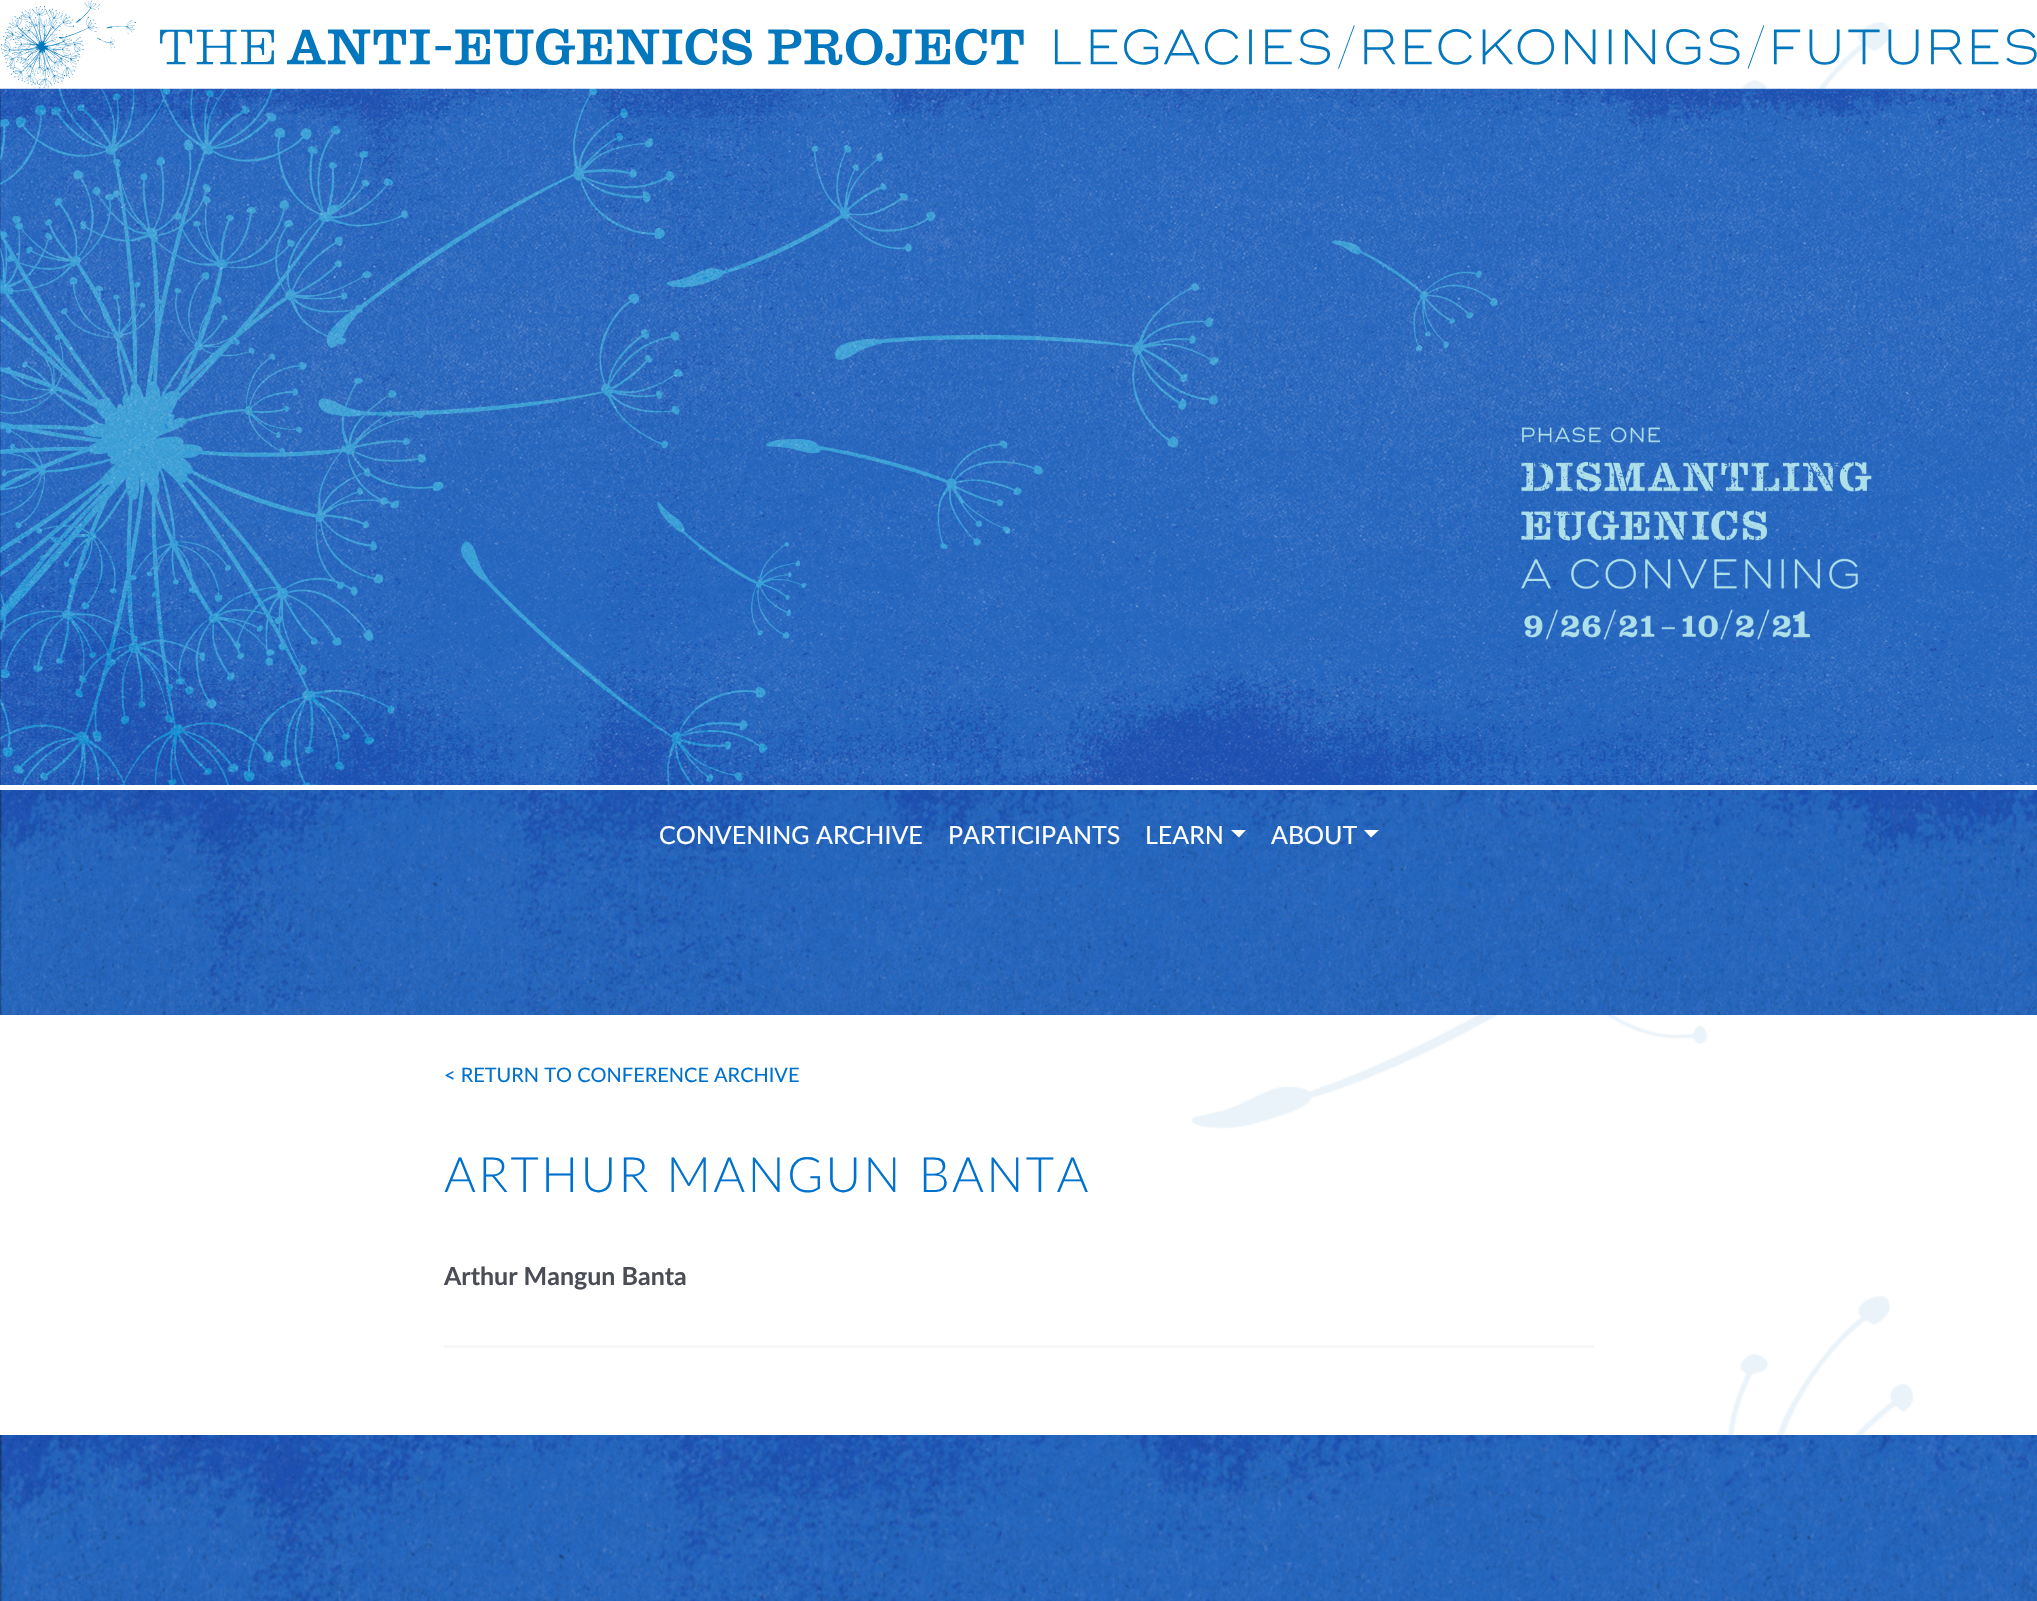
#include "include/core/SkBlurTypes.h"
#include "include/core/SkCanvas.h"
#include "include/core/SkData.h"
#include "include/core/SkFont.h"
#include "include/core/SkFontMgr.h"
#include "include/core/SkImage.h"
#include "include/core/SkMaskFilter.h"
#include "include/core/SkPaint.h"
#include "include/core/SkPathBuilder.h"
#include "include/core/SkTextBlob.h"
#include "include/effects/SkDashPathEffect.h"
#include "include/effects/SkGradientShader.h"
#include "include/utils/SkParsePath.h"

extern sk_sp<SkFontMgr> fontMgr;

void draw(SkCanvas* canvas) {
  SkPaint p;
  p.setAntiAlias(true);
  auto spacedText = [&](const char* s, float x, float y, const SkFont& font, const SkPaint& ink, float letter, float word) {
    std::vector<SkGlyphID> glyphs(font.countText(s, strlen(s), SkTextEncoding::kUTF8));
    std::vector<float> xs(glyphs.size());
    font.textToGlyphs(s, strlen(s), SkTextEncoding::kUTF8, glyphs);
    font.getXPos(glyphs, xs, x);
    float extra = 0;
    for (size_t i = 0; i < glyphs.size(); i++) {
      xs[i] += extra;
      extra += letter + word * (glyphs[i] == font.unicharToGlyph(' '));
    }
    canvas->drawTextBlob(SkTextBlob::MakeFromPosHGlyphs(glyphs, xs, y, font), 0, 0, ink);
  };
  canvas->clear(SK_ColorWHITE);
  canvas->drawImageRect(SkImages::DeferredFromEncodedData(SkData::MakeFromFileName("images/1.png")), SkRect::MakeLTRB(41, 22, 2006, 1435), SkSamplingOptions());
  p.setColor(SK_ColorWHITE);
  canvas->drawRect(SkRect::MakeLTRB(118, 785, 189, 790), p);
  canvas->drawImageRect(SkImages::DeferredFromEncodedData(SkData::MakeFromFileName("images/2.png")), SkRect::MakeLTRB(0, 0, 2037, 89), SkSamplingOptions());
  canvas->drawImageRect(SkImages::DeferredFromEncodedData(SkData::MakeFromFileName("images/3.png")), SkRect::MakeLTRB(0, 88, 2037, 785), SkSamplingOptions());
  canvas->drawImageRect(SkImages::DeferredFromEncodedData(SkData::MakeFromFileName("images/4.png")), SkRect::MakeLTRB(0, 790, 2037, 1015), SkSamplingOptions());
  canvas->drawPath(SkPathBuilder().moveTo(1231, 830).lineTo(1246, 830).lineTo(1239, 837.5f).close().detach(), p);
  canvas->drawPath(SkPathBuilder().moveTo(1364, 830).lineTo(1379, 830).lineTo(1371, 837.5f).close().detach(), p);
  p.setColor(SkColorSetRGB(247, 247, 247));
  canvas->drawRect(SkRect::MakeLTRB(444, 1345, 1594, 1348), p);
  canvas->drawImageRect(SkImages::DeferredFromEncodedData(SkData::MakeFromFileName("images/5.png")), SkRect::MakeLTRB(0, 1435, 2037, 1601), SkSamplingOptions());
  SkFont font1(fontMgr->matchFamilyStyle("Lato", SkFontStyle::Normal()), 25);
  font1.setSubpixel(true);
  p.setColor(SK_ColorWHITE);
  canvas->drawString("CONVENING ARCHIVE", 659, 844, font1, p);
  canvas->drawString("PARTICIPANTS", 948, 844, font1, p);
  canvas->drawString("LEARN", 1145, 844, font1, p);
  canvas->drawString("ABOUT", 1271, 844, font1, p);
  SkFont font2(fontMgr->matchFamilyStyle("Lato", SkFontStyle::Normal()), 20);
  font2.setSubpixel(true);
  p.setColor(SkColorSetRGB(0, 114, 206));
  canvas->drawString("< RETURN TO CONFERENCE ARCHIVE", 444, 1082, font2, p);
  SkFont font3(fontMgr->matchFamilyStyle("Lato", SkFontStyle(300, SkFontStyle::kNormal_Width, SkFontStyle::kUpright_Slant)), 48.8f);
  font3.setSubpixel(true);
  spacedText("ARTHUR MANGUN BANTA", 444, 1192, font3, p, 2.5f, 0);
  SkFont font4(fontMgr->matchFamilyStyle("Lato", SkFontStyle::Bold()), 25);
  font4.setSubpixel(true);
  p.setColor(SkColorSetRGB(74, 77, 86));
  canvas->drawString("Arthur Mangun Banta", 444, 1285, font4, p);
}
